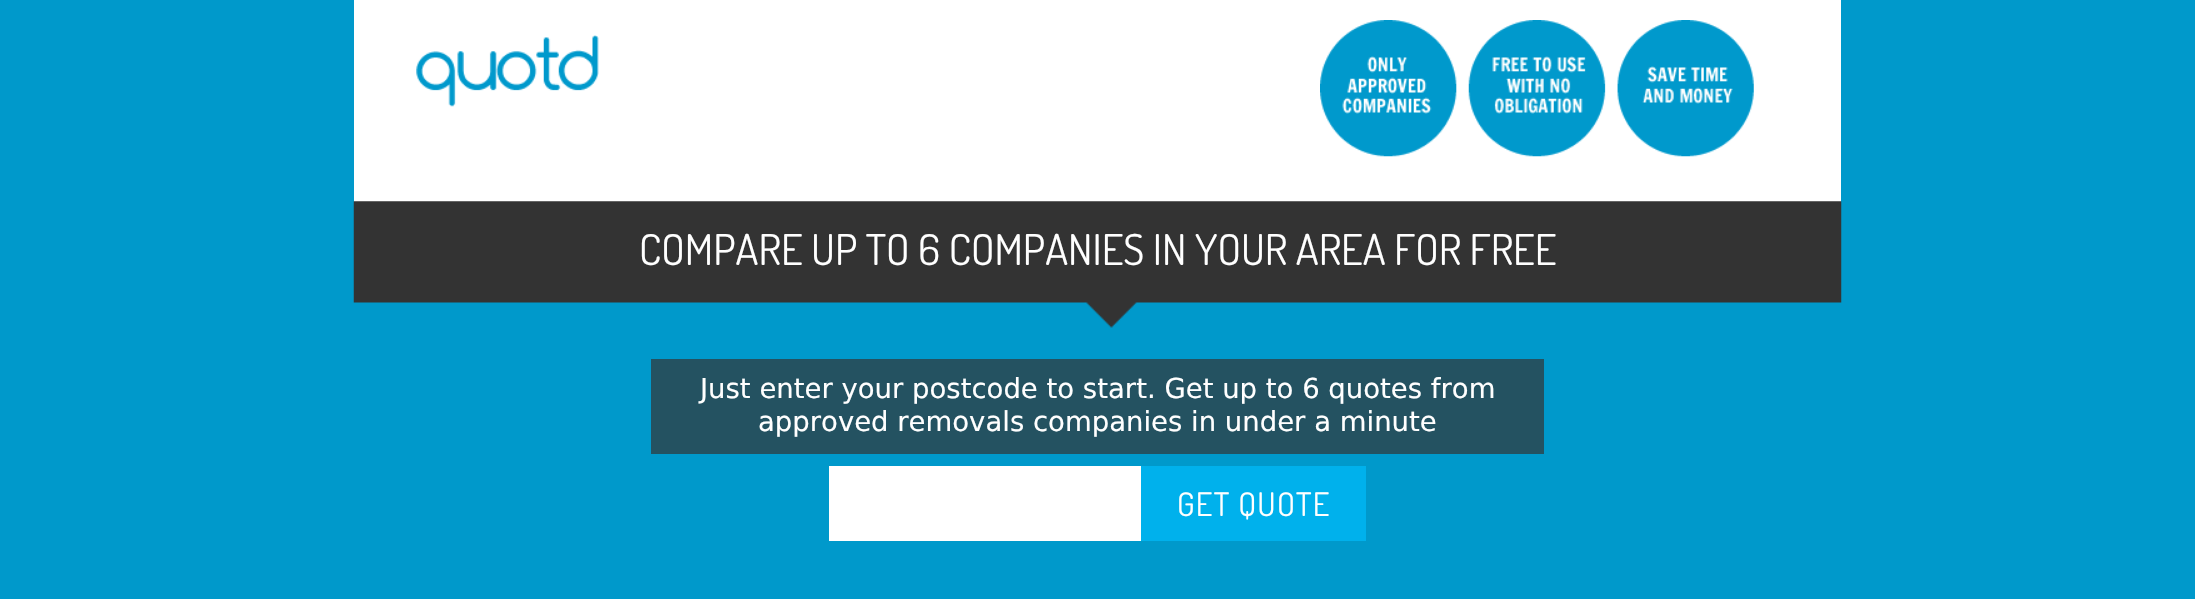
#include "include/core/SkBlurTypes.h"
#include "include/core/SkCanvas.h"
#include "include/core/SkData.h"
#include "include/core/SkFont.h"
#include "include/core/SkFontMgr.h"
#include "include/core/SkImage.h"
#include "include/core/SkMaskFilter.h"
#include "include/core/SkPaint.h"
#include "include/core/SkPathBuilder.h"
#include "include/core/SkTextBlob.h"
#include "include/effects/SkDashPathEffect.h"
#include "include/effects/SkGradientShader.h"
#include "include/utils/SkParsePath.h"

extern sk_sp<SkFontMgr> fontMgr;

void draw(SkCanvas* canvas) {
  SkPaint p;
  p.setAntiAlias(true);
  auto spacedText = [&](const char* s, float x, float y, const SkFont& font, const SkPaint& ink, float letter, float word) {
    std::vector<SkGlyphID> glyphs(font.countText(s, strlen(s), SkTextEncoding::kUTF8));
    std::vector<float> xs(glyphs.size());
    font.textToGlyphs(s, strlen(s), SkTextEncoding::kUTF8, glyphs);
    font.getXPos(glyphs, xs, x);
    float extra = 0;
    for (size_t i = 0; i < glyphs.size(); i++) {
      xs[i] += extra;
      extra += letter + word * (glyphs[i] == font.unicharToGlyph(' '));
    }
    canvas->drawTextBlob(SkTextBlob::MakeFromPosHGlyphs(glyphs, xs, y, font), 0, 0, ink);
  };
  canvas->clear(SkColorSetRGB(0, 153, 203));
  p.setColor(SK_ColorWHITE);
  canvas->drawRect(SkRect::MakeLTRB(354, 0, 1841, 202), p);
  canvas->drawImageRect(SkImages::DeferredFromEncodedData(SkData::MakeFromFileName("images/1.png")), SkRect::MakeLTRB(416, 35, 599, 107), SkSamplingOptions());
  canvas->drawImageRect(SkImages::DeferredFromEncodedData(SkData::MakeFromFileName("images/2.png")), SkRect::MakeLTRB(1320, 20, 1754, 157), SkSamplingOptions());
  canvas->drawImageRect(SkImages::DeferredFromEncodedData(SkData::MakeFromFileName("images/3.png")), SkRect::MakeLTRB(353, 201, 1842, 328), SkSamplingOptions());
  p.setColor(SkColorSetRGB(36, 82, 97));
  canvas->drawRect(SkRect::MakeLTRB(651, 359, 1544, 454), p);
  p.setColor(SK_ColorWHITE);
  canvas->drawRect(SkRect::MakeLTRB(829, 466, 1141, 541), p);
  p.setColor(SkColorSetRGB(0, 177, 236));
  canvas->drawRect(SkRect::MakeLTRB(1141, 466, 1366, 541), p);
  SkFont font1(fontMgr->matchFamilyStyle("Dosis", SkFontStyle::Normal()), 42.5f);
  font1.setSubpixel(true);
  p.setColor(SK_ColorWHITE);
  canvas->drawString("COMPARE UP TO 6 COMPANIES IN YOUR AREA FOR FREE", 639, 265, font1, p);
  SkFont font2(fontMgr->matchFamilyStyle("DejaVu Sans", SkFontStyle::Normal()), 27.5f);
  font2.setSubpixel(true);
  canvas->drawString("Just enter your postcode to start. Get up to 6 quotes from", 700, 398, font2, p);
  canvas->drawString("approved removals companies in under a minute", 758, 431, font2, p);
  SkFont font3(fontMgr->matchFamilyStyle("Dosis", SkFontStyle::Normal()), 32.5f);
  font3.setSubpixel(true);
  spacedText("GET QUOTE", 1177, 516, font3, p, 1.25f, 0);
}
